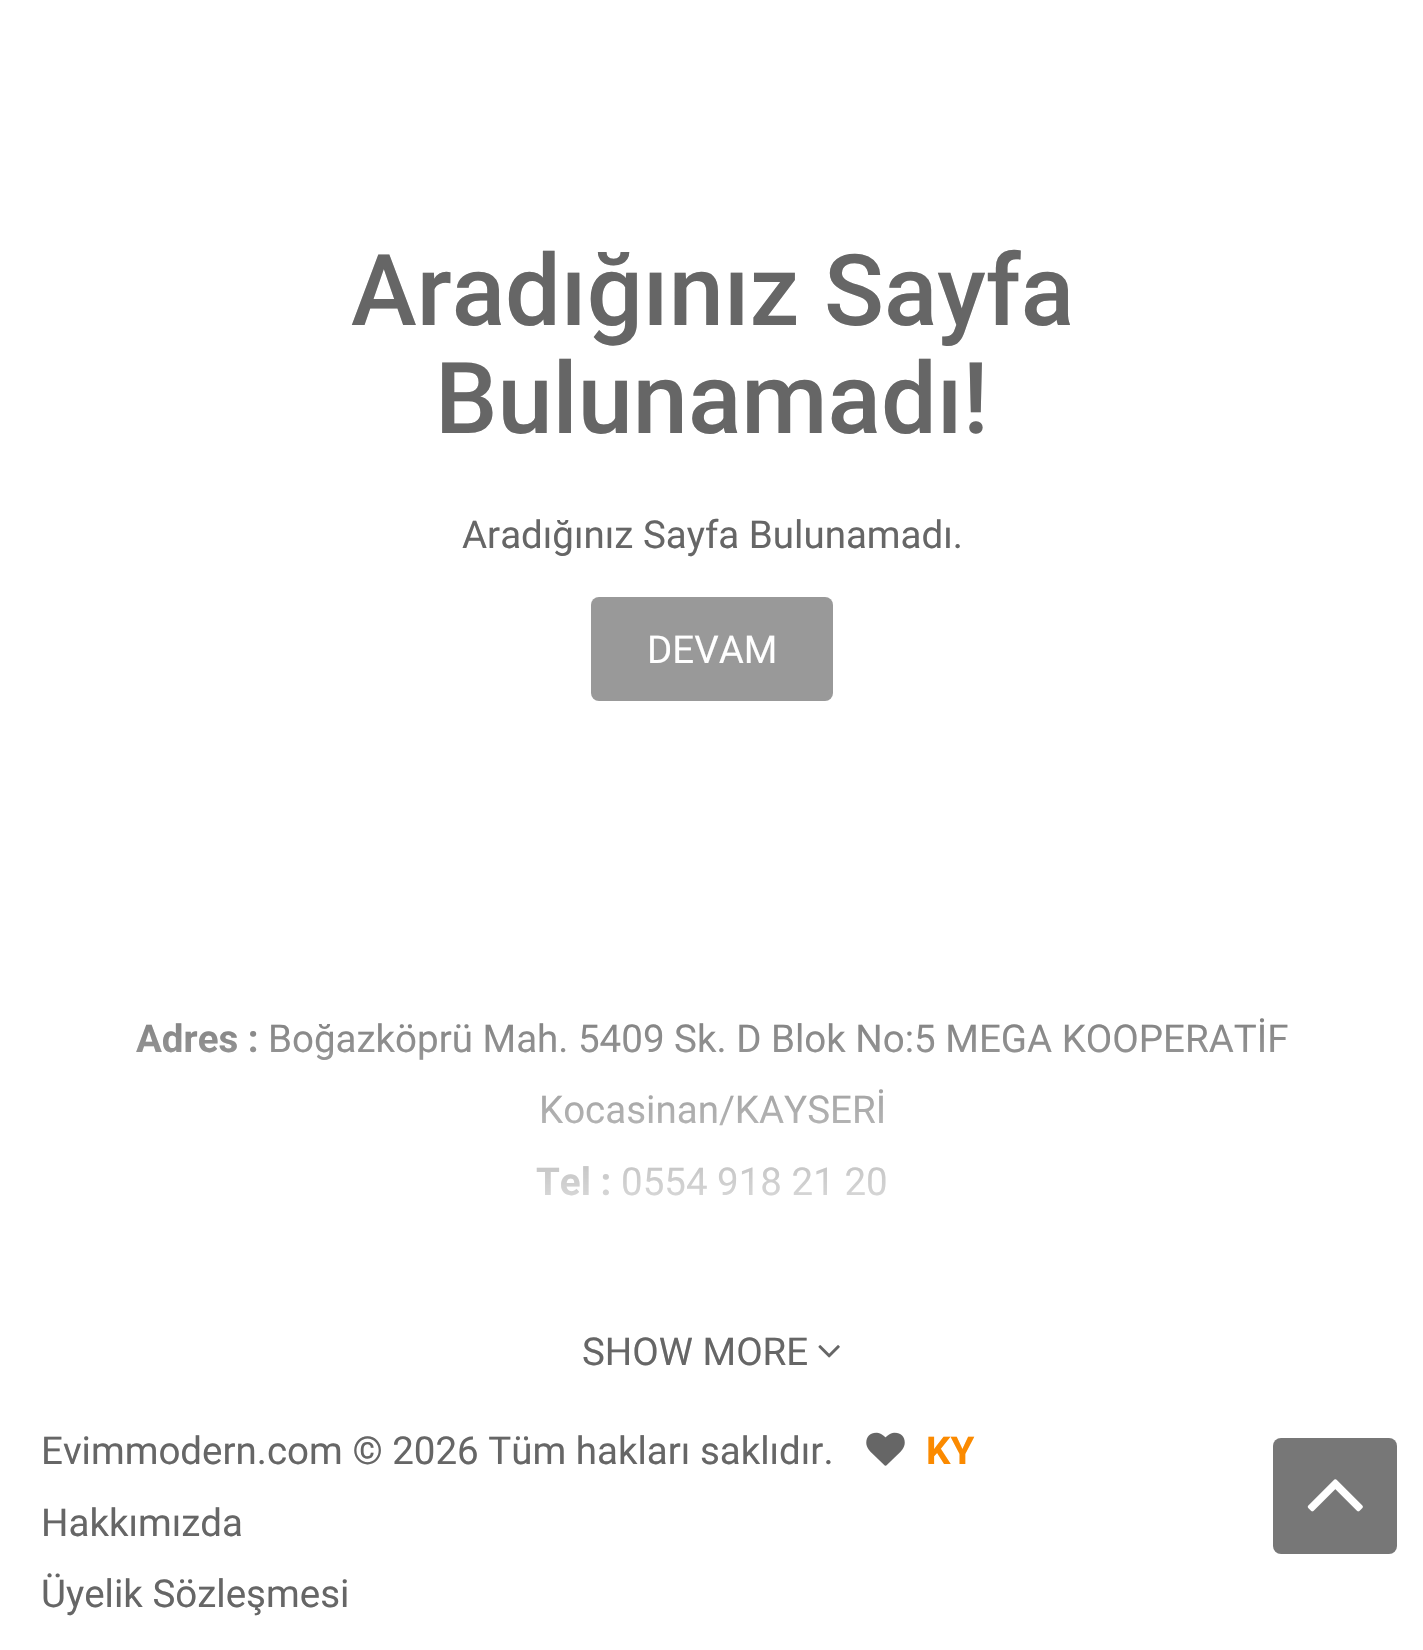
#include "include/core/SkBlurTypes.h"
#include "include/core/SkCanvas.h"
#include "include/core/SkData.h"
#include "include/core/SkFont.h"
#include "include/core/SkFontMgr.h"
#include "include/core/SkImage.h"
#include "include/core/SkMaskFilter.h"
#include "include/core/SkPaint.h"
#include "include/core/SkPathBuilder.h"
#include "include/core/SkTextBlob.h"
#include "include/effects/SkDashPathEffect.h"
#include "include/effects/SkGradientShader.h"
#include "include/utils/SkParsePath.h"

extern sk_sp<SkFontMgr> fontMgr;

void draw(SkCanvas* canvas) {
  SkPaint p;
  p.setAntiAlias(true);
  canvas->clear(SK_ColorWHITE);
  p.setColor(SkColorSetRGB(153, 153, 153));
  canvas->drawRoundRect(SkRect::MakeLTRB(591, 597, 833, 701), 8, 8, p);
  canvas->drawImageRect(SkImages::DeferredFromEncodedData(SkData::MakeFromFileName("images/1.png")), SkRect::MakeLTRB(818, 1345, 840, 1358), SkSamplingOptions());
  canvas->drawImageRect(SkImages::DeferredFromEncodedData(SkData::MakeFromFileName("images/2.png")), SkRect::MakeLTRB(866, 1432, 905, 1466), SkSamplingOptions());
  p.setColor(SkColorSetRGB(119, 119, 119));
  canvas->drawRoundRect(SkRect::MakeLTRB(1273, 1438, 1397, 1554), 8, 8, p);
  canvas->drawImageRect(SkImages::DeferredFromEncodedData(SkData::MakeFromFileName("images/3.png")), SkRect::MakeLTRB(1307, 1479, 1363, 1512), SkSamplingOptions());
  SkFont font1(fontMgr->matchFamilyStyle("Roboto", SkFontStyle(500, SkFontStyle::kNormal_Width, SkFontStyle::kUpright_Slant)), 99);
  font1.setSubpixel(true);
  p.setColor(SkColorSetRGB(102, 102, 102));
  canvas->drawString("Aradığınız Sayfa", 351, 325, font1, p);
  canvas->drawString("Bulunamadı!", 435, 433, font1, p);
  SkFont font2(fontMgr->matchFamilyStyle("Roboto", SkFontStyle::Normal()), 38.5f);
  font2.setSubpixel(true);
  canvas->drawString("Aradığınız Sayfa Bulunamadı.", 462, 548, font2, p);
  p.setColor(SK_ColorWHITE);
  canvas->drawString("DEVAM", 647, 663, font2, p);
  SkFont font3(fontMgr->matchFamilyStyle("Roboto", SkFontStyle::Bold()), 38.5f);
  font3.setSubpixel(true);
  p.setColor(SkColorSetRGB(102, 102, 102));
  canvas->drawString("Adres :", 136, 1052, font3, p);
  canvas->drawString("Boğazköprü Mah. 5409 Sk. D Blok No:5 MEGA KOOPERATİF", 268, 1052, font2, p);
  canvas->drawString("Kocasinan/KAYSERİ", 539, 1123, font2, p);
  canvas->drawString("Tel :", 536, 1195, font3, p);
  canvas->drawString("0554 918 21 20", 621, 1195, font2, p);
  {
    const SkColor colors[] = {SkColorSetARGB(0, 255, 255, 255), SK_ColorWHITE};
    const float stops[] = {0, 1};
    const SkPoint ends[] = {{712, 957}, {712, 1287}};
    p.setShader(SkGradientShader::MakeLinear(ends, colors, stops, 2, SkTileMode::kClamp));
    p.setAlpha(255);
  }
  canvas->drawRect(SkRect::MakeLTRB(136, 1018, 1288, 1196), p);
  p.setShader(nullptr);
  p.setColor(SkColorSetRGB(102, 102, 102));
  canvas->drawString("SHOW MORE", 582, 1365, font2, p);
  canvas->drawString("Evimmodern.com © 2026 Tüm hakları saklıdır.", 41, 1464, font2, p);
  p.setColor(SkColorSetRGB(251, 138, 0));
  canvas->drawString("KY", 926, 1464, font3, p);
  p.setColor(SkColorSetRGB(102, 102, 102));
  canvas->drawString("Hakkımızda", 41, 1536, font2, p);
  canvas->drawString("Üyelik Sözleşmesi", 41, 1607, font2, p);
}
